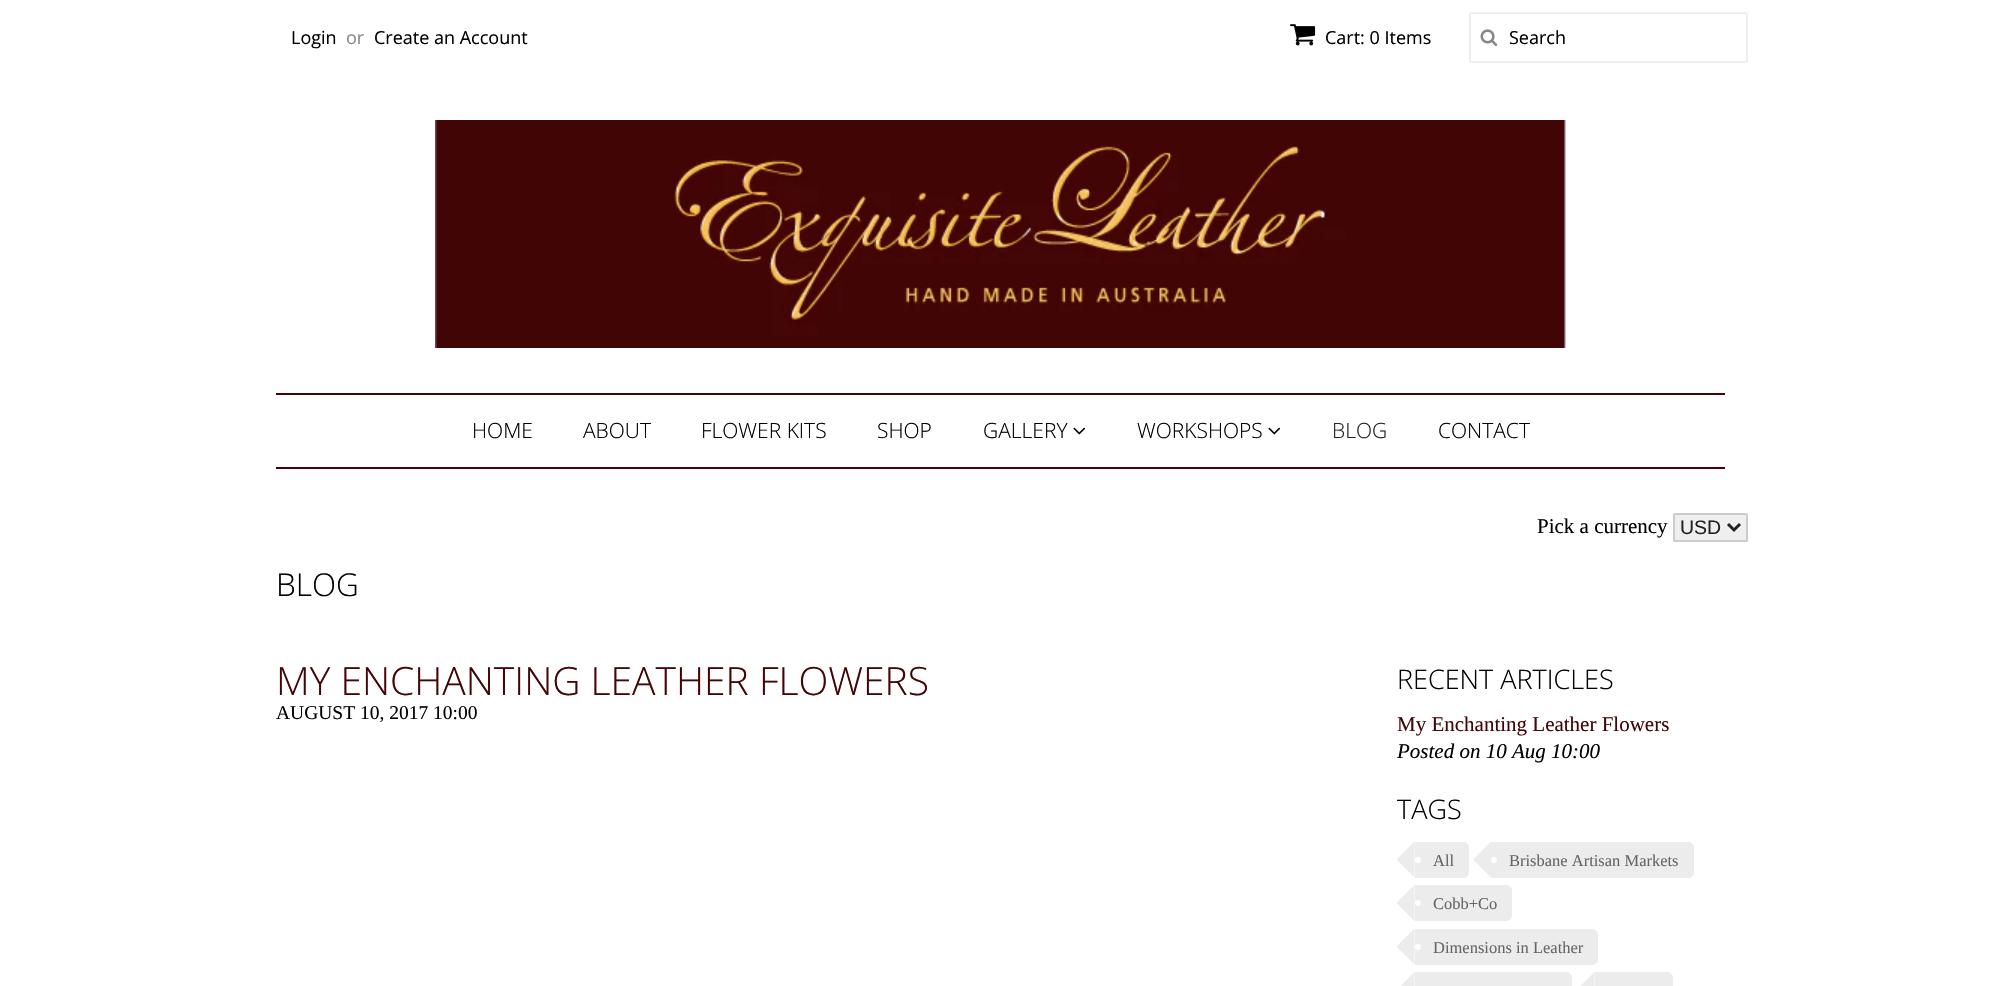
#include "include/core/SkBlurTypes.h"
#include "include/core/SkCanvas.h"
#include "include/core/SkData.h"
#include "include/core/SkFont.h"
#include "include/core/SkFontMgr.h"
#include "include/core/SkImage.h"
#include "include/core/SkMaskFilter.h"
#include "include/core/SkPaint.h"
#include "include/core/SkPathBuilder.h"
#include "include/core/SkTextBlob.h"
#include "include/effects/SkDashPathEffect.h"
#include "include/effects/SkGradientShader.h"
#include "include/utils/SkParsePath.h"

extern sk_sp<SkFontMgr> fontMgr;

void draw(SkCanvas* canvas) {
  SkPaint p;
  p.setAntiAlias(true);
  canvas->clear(SK_ColorWHITE);
  canvas->drawImageRect(SkImages::DeferredFromEncodedData(SkData::MakeFromFileName("images/1.png")), SkRect::MakeLTRB(1290, 24, 1316, 46), SkSamplingOptions());
  p.setStyle(SkPaint::kStroke_Style);
  p.setStrokeWidth(2);
  p.setColor(SkColorSetRGB(238, 238, 238));
  canvas->drawRoundRect(SkRect::MakeLTRB(1470, 13, 1747, 62), 2, 2, p);
  canvas->drawImageRect(SkImages::DeferredFromEncodedData(SkData::MakeFromFileName("images/2.png")), SkRect::MakeLTRB(1480, 29, 1498, 46), SkSamplingOptions());
  canvas->drawImageRect(SkImages::DeferredFromEncodedData(SkData::MakeFromFileName("images/3.png")), SkRect::MakeLTRB(435, 120, 1566, 348), SkSamplingOptions());
  p.setStyle(SkPaint::kFill_Style);
  p.setColor(SkColorSetRGB(67, 5, 6));
  canvas->drawRect(SkRect::MakeLTRB(276, 393, 1725, 395), p);
  canvas->drawRect(SkRect::MakeLTRB(276, 467, 1725, 469), p);
  canvas->drawImageRect(SkImages::DeferredFromEncodedData(SkData::MakeFromFileName("images/4.png")), SkRect::MakeLTRB(1073, 427, 1086, 435), SkSamplingOptions());
  canvas->drawImageRect(SkImages::DeferredFromEncodedData(SkData::MakeFromFileName("images/4.png")), SkRect::MakeLTRB(1268, 427, 1281, 435), SkSamplingOptions());
  p.setColor(SkColorSetRGB(239, 239, 239));
  canvas->drawRoundRect(SkRect::MakeLTRB(1674, 514, 1747, 541), 0.5f, 0.5f, p);
  p.setStyle(SkPaint::kStroke_Style);
  p.setColor(SkColorSetRGB(204, 204, 204));
  canvas->drawRoundRect(SkRect::MakeLTRB(1674, 514, 1747, 541), 0.5f, 0.5f, p);
  p.setStrokeWidth(3);
  p.setColor(SkColorSetRGB(34, 34, 34));
  canvas->drawPath(SkPathBuilder().moveTo(1728, 524).lineTo(1734, 530).lineTo(1740, 524).detach(), p);
  p.setStyle(SkPaint::kFill_Style);
  p.setColor(SkColorSetRGB(236, 236, 236));
  canvas->drawPath(SkPathBuilder().moveTo(1415, 842).lineTo(1463, 842).cubicTo(1466.5f, 842, 1469, 844.5f, 1469, 848).lineTo(1469, 872).cubicTo(1469, 875.5f, 1466.5f, 878, 1463, 878).lineTo(1415, 878).close().detach(), p);
  canvas->drawPath(SkPathBuilder().moveTo(1414.5f, 841.5f).lineTo(1414.5f, 877.5f).lineTo(1396.5f, 859.5f).close().detach(), p);
  p.setColor(SK_ColorWHITE);
  canvas->drawCircle(1418, 860, 3, p);
  p.setColor(SkColorSetRGB(236, 236, 236));
  canvas->drawPath(SkPathBuilder().moveTo(1491, 842).lineTo(1688, 842).cubicTo(1691.5f, 842, 1694, 844.5f, 1694, 848).lineTo(1694, 872).cubicTo(1694, 875.5f, 1691.5f, 878, 1688, 878).lineTo(1491, 878).close().detach(), p);
  canvas->drawPath(SkPathBuilder().moveTo(1491, 841.5f).lineTo(1491, 877.5f).lineTo(1473, 859.5f).close().detach(), p);
  p.setColor(SK_ColorWHITE);
  canvas->drawCircle(1494, 860, 3, p);
  p.setColor(SkColorSetRGB(236, 236, 236));
  canvas->drawPath(SkPathBuilder().moveTo(1415, 885).lineTo(1506, 885).cubicTo(1509.5f, 885, 1512, 887.5f, 1512, 891).lineTo(1512, 915).cubicTo(1512, 918.5f, 1509.5f, 921, 1506, 921).lineTo(1415, 921).close().detach(), p);
  canvas->drawPath(SkPathBuilder().moveTo(1414.5f, 885).lineTo(1414.5f, 921).lineTo(1396.5f, 903).close().detach(), p);
  p.setColor(SK_ColorWHITE);
  canvas->drawCircle(1418, 903, 3, p);
  p.setColor(SkColorSetRGB(236, 236, 236));
  canvas->drawPath(SkPathBuilder().moveTo(1415, 929).lineTo(1592, 929).cubicTo(1595.5f, 929, 1598, 931.5f, 1598, 935).lineTo(1598, 959).cubicTo(1598, 962.5f, 1595.5f, 965, 1592, 965).lineTo(1415, 965).close().detach(), p);
  canvas->drawPath(SkPathBuilder().moveTo(1414.5f, 928.5f).lineTo(1414.5f, 964.5f).lineTo(1396.5f, 946.5f).close().detach(), p);
  p.setColor(SK_ColorWHITE);
  canvas->drawCircle(1418, 947, 3, p);
  p.setColor(SkColorSetRGB(236, 236, 236));
  canvas->drawPath(SkPathBuilder().moveTo(1415, 972).lineTo(1566, 972).cubicTo(1569.5f, 972, 1572, 974.5f, 1572, 978).lineTo(1572, 986).cubicTo(1572, 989.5f, 1569.5f, 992, 1566, 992).lineTo(1415, 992).close().detach(), p);
  canvas->drawPath(SkPathBuilder().moveTo(1414.5f, 972).lineTo(1414.5f, 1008).lineTo(1396.5f, 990).close().detach(), p);
  canvas->drawPath(SkPathBuilder().moveTo(1595, 972).lineTo(1667, 972).cubicTo(1670.5f, 972, 1673, 974.5f, 1673, 978).lineTo(1673, 986).cubicTo(1673, 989.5f, 1670.5f, 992, 1667, 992).lineTo(1595, 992).close().detach(), p);
  canvas->drawPath(SkPathBuilder().moveTo(1594.5f, 972).lineTo(1594.5f, 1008).lineTo(1576.5f, 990).close().detach(), p);
  SkFont font1(fontMgr->matchFamilyStyle("Open Sans", SkFontStyle::Normal()), 18);
  font1.setSubpixel(true);
  p.setColor(SK_ColorBLACK);
  canvas->drawString("Login", 291, 44, font1, p);
  p.setColor(SkColorSetRGB(136, 136, 136));
  canvas->drawString("or", 346, 44, font1, p);
  p.setColor(SK_ColorBLACK);
  canvas->drawString("Create an Account", 374, 44, font1, p);
  canvas->drawString("Cart: 0 Items", 1325, 44, font1, p);
  canvas->drawString("Search", 1509, 44, font1, p);
  SkFont font2(fontMgr->matchFamilyStyle("Open Sans", SkFontStyle(300, SkFontStyle::kNormal_Width, SkFontStyle::kUpright_Slant)), 21);
  font2.setSubpixel(true);
  canvas->drawString("HOME", 472, 438, font2, p);
  canvas->drawString("ABOUT", 583, 438, font2, p);
  canvas->drawString("FLOWER KITS", 701, 438, font2, p);
  canvas->drawString("SHOP", 877, 438, font2, p);
  canvas->drawString("GALLERY", 983, 438, font2, p);
  canvas->drawString("WORKSHOPS", 1137, 438, font2, p);
  p.setColor(SkColorSetRGB(34, 34, 34));
  canvas->drawString("BLOG", 1332, 438, font2, p);
  p.setColor(SK_ColorBLACK);
  canvas->drawString("CONTACT", 1438, 438, font2, p);
  SkFont font3(fontMgr->matchFamilyStyle("Liberation Serif", SkFontStyle::Normal()), 21);
  font3.setSubpixel(true);
  canvas->drawString("Pick a currency", 1537, 533, font3, p);
  SkFont font4(fontMgr->matchFamilyStyle("Liberation Sans", SkFontStyle::Normal()), 19.5f);
  font4.setSubpixel(true);
  p.setColor(SkColorSetRGB(34, 34, 34));
  canvas->drawString("USD", 1680, 534, font4, p);
  SkFont font5(fontMgr->matchFamilyStyle("Open Sans", SkFontStyle(300, SkFontStyle::kNormal_Width, SkFontStyle::kUpright_Slant)), 31.5f);
  font5.setSubpixel(true);
  p.setColor(SK_ColorBLACK);
  canvas->drawString("BLOG", 276, 596, font5, p);
  SkFont font6(fontMgr->matchFamilyStyle("Open Sans", SkFontStyle(300, SkFontStyle::kNormal_Width, SkFontStyle::kUpright_Slant)), 39);
  font6.setSubpixel(true);
  p.setColor(SkColorSetRGB(67, 5, 6));
  canvas->drawString("MY ENCHANTING LEATHER FLOWERS", 276, 695, font6, p);
  SkFont font7(fontMgr->matchFamilyStyle("Liberation Serif", SkFontStyle::Normal()), 19.5f);
  font7.setSubpixel(true);
  p.setColor(SK_ColorBLACK);
  canvas->drawString("AUGUST 10, 2017 10:00", 276, 719, font7, p);
  SkFont font8(fontMgr->matchFamilyStyle("Open Sans", SkFontStyle(300, SkFontStyle::kNormal_Width, SkFontStyle::kUpright_Slant)), 27);
  font8.setSubpixel(true);
  canvas->drawString("RECENT ARTICLES", 1397, 689, font8, p);
  p.setColor(SkColorSetRGB(67, 5, 6));
  canvas->drawString("My Enchanting Leather Flowers", 1397, 731, font3, p);
  SkFont font9(fontMgr->matchFamilyStyle("Liberation Serif", SkFontStyle::Italic()), 21);
  font9.setSubpixel(true);
  p.setColor(SK_ColorBLACK);
  canvas->drawString("Posted on 10 Aug 10:00", 1397, 758, font9, p);
  canvas->drawString("TAGS", 1397, 819, font8, p);
  SkFont font10(fontMgr->matchFamilyStyle("Liberation Serif", SkFontStyle::Normal()), 16.5f);
  font10.setSubpixel(true);
  p.setColor(SkColorSetRGB(102, 102, 102));
  canvas->drawString("All", 1433, 866, font10, p);
  canvas->drawString("Brisbane Artisan Markets", 1509, 866, font10, p);
  canvas->drawString("Cobb+Co", 1433, 909, font10, p);
  canvas->drawString("Dimensions in Leather", 1433, 953, font10, p);
}
